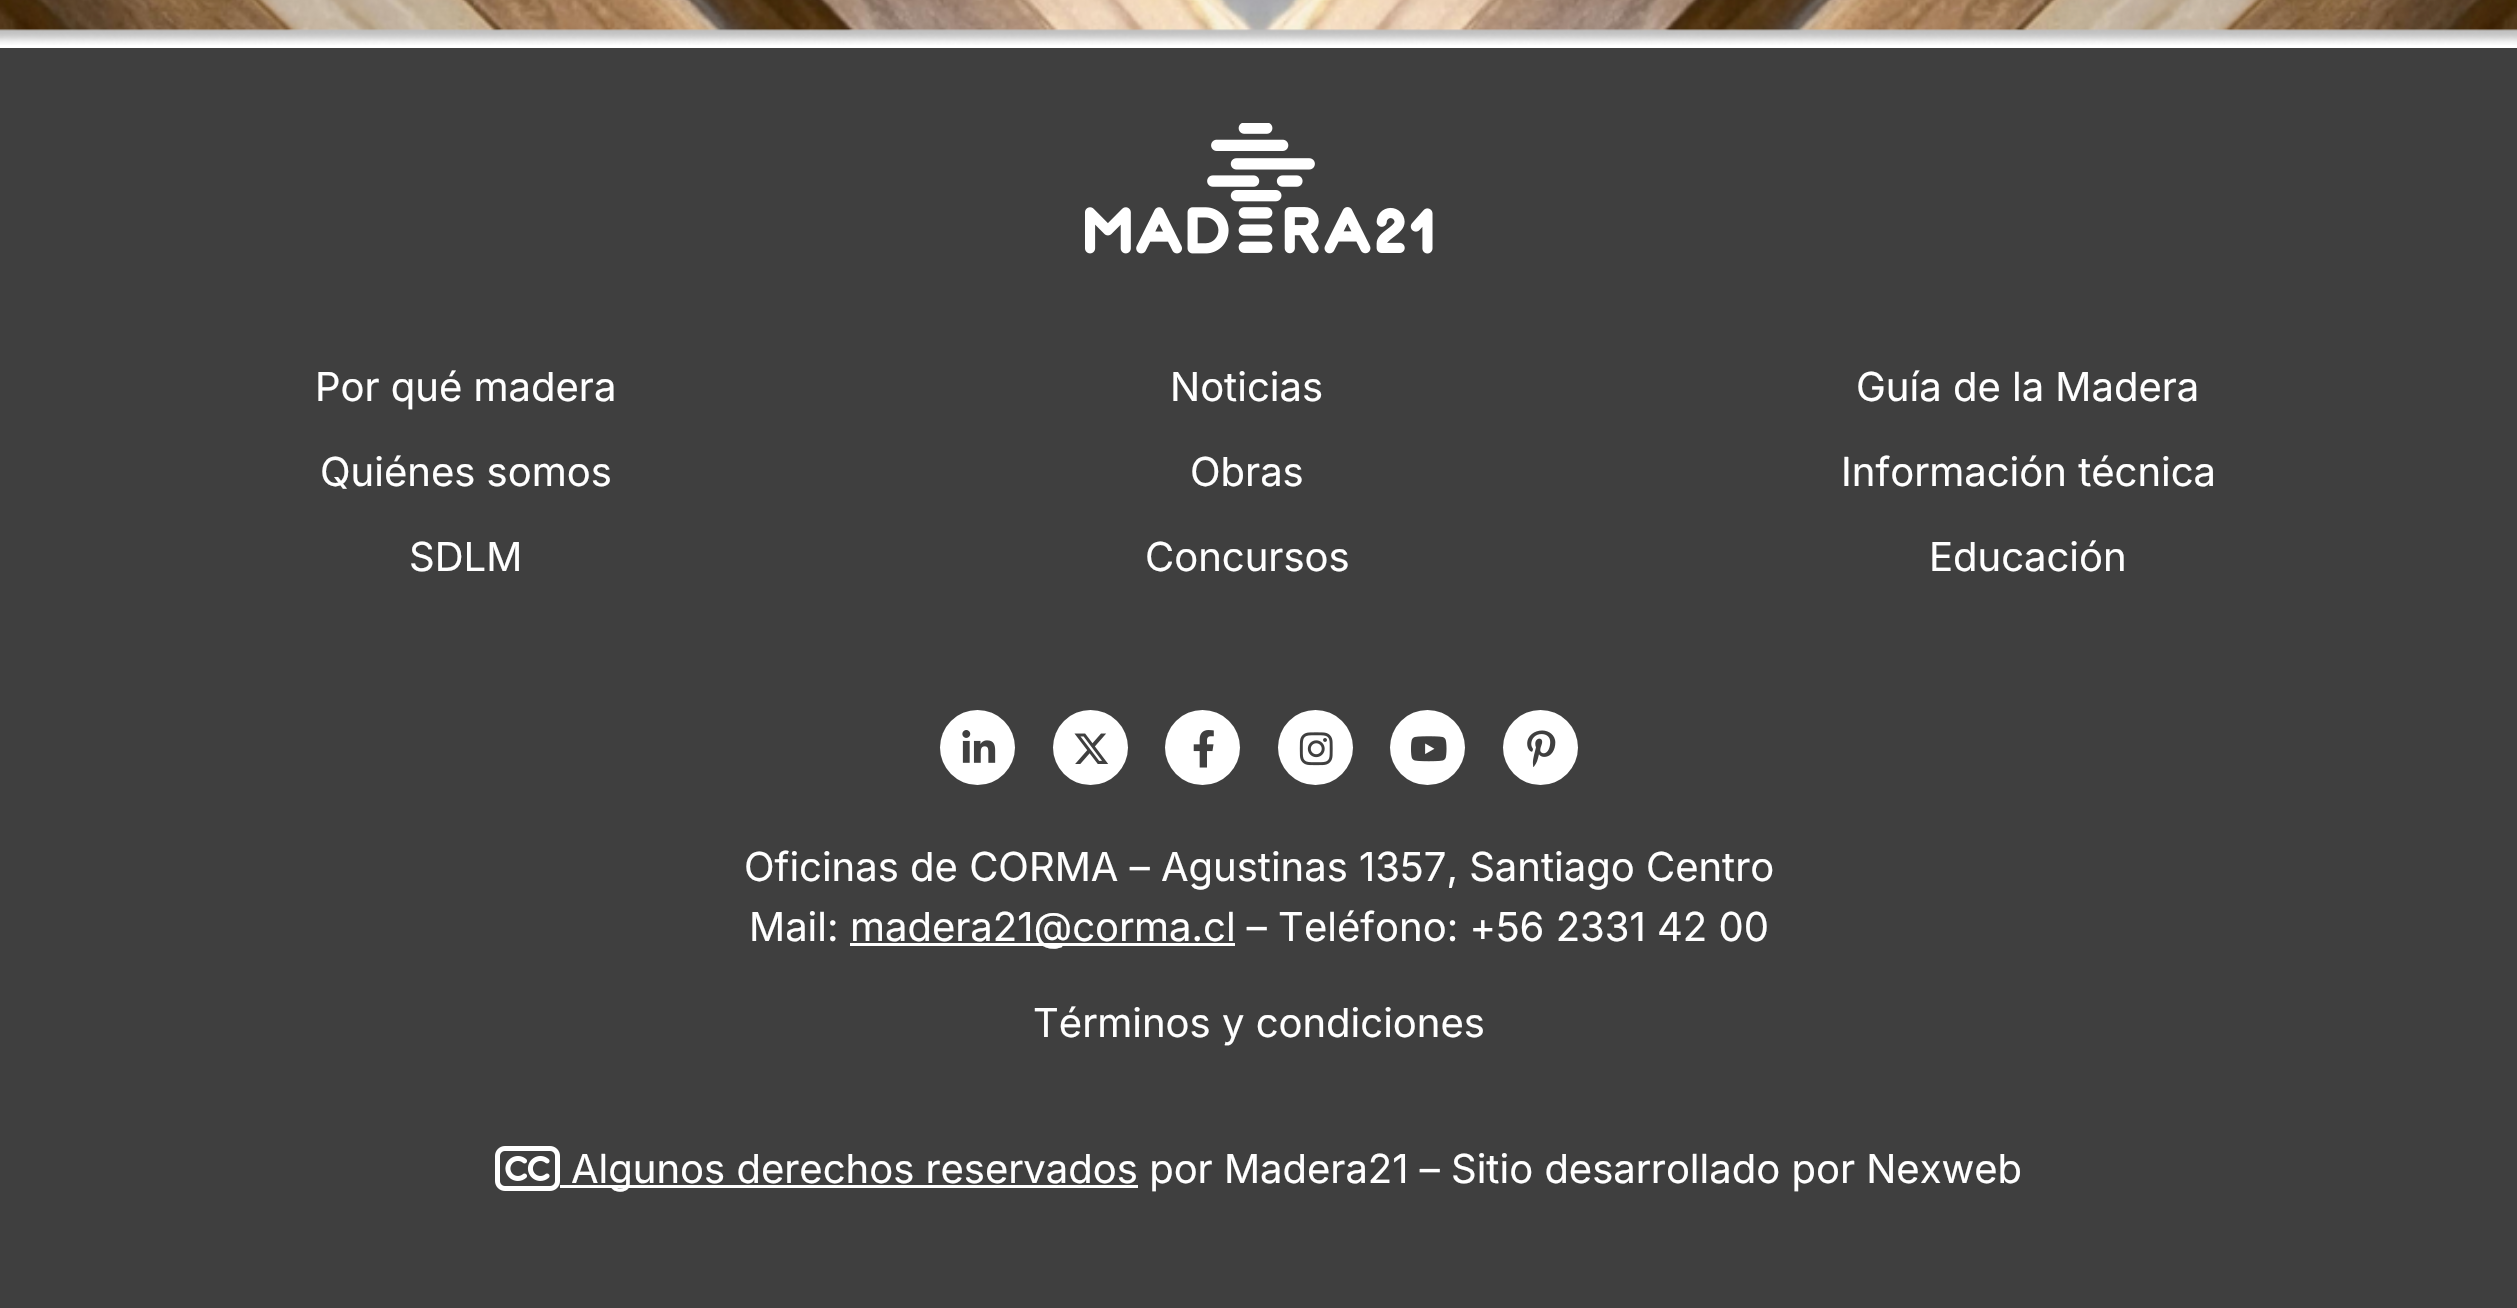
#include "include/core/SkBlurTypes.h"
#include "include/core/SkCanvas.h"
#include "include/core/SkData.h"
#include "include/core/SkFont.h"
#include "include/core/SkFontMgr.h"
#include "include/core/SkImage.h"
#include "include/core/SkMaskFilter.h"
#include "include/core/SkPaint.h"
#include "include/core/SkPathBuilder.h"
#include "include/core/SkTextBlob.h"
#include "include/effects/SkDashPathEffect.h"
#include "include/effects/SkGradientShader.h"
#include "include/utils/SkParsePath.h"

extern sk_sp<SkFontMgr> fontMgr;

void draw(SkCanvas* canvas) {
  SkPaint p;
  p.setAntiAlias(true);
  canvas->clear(SK_ColorWHITE);
  canvas->drawImageRect(SkImages::DeferredFromEncodedData(SkData::MakeFromFileName("images/1.png")), SkRect::MakeLTRB(0, 0, 2517, 45), SkSamplingOptions());
  p.setColor(SkColorSetRGB(63, 63, 63));
  canvas->drawRect(SkRect::MakeLTRB(0, 48, 2517, 1308), p);
  canvas->drawImageRect(SkImages::DeferredFromEncodedData(SkData::MakeFromFileName("images/2.png")), SkRect::MakeLTRB(1085, 123, 1433, 254), SkSamplingOptions());
  p.setColor(SK_ColorWHITE);
  canvas->drawCircle(977.5f, 747.5f, 37.5f, p);
  canvas->drawImageRect(SkImages::DeferredFromEncodedData(SkData::MakeFromFileName("images/3.png")), SkRect::MakeLTRB(962, 730, 996, 763), SkSamplingOptions());
  canvas->drawCircle(1090.5f, 747.5f, 37.5f, p);
  canvas->drawImageRect(SkImages::DeferredFromEncodedData(SkData::MakeFromFileName("images/4.png")), SkRect::MakeLTRB(1074, 733, 1109, 764), SkSamplingOptions());
  canvas->drawCircle(1202.5f, 747.5f, 37.5f, p);
  canvas->drawImageRect(SkImages::DeferredFromEncodedData(SkData::MakeFromFileName("images/5.png")), SkRect::MakeLTRB(1193, 730, 1214, 768), SkSamplingOptions());
  canvas->drawCircle(1315.5f, 747.5f, 37.5f, p);
  canvas->drawImageRect(SkImages::DeferredFromEncodedData(SkData::MakeFromFileName("images/6.png")), SkRect::MakeLTRB(1299, 732, 1333, 766), SkSamplingOptions());
  canvas->drawCircle(1427.5f, 747.5f, 37.5f, p);
  canvas->drawImageRect(SkImages::DeferredFromEncodedData(SkData::MakeFromFileName("images/7.png")), SkRect::MakeLTRB(1411, 736, 1447, 762), SkSamplingOptions());
  canvas->drawCircle(1540.5f, 747.5f, 37.5f, p);
  canvas->drawImageRect(SkImages::DeferredFromEncodedData(SkData::MakeFromFileName("images/8.png")), SkRect::MakeLTRB(1527, 730, 1556, 767), SkSamplingOptions());
  canvas->drawRect(SkRect::MakeLTRB(850, 943, 1235, 946), p);
  canvas->drawImageRect(SkImages::DeferredFromEncodedData(SkData::MakeFromFileName("images/9.png")), SkRect::MakeLTRB(495, 1146, 560, 1191), SkSamplingOptions());
  canvas->drawRect(SkRect::MakeLTRB(560, 1185, 1138, 1188), p);
  SkFont font1(fontMgr->matchFamilyStyle("Inter", SkFontStyle::Normal()), 40);
  font1.setSubpixel(true);
  canvas->drawString("Por qué madera", 315, 401, font1, p);
  canvas->drawString("Quiénes somos", 320, 486, font1, p);
  canvas->drawString("SDLM", 409, 571, font1, p);
  canvas->drawString("Noticias", 1170, 401, font1, p);
  canvas->drawString("Obras", 1190, 486, font1, p);
  canvas->drawString("Concursos", 1145, 571, font1, p);
  canvas->drawString("Guía de la Madera", 1856, 401, font1, p);
  canvas->drawString("Información técnica", 1841, 486, font1, p);
  canvas->drawString("Educación", 1929, 571, font1, p);
  canvas->drawString("Oficinas de CORMA – Agustinas 1357, Santiago Centro", 744, 881, font1, p);
  canvas->drawString("Mail:", 749, 941, font1, p);
  canvas->drawString("madera21@corma.cl – Teléfono: +56 2331 42 00", 850, 941, font1, p);
  canvas->drawString("Términos y condiciones", 1033, 1037, font1, p);
  canvas->drawString("Algunos derechos reservados por Madera21 – Sitio desarrollado por Nexweb", 571, 1183, font1, p);
}
